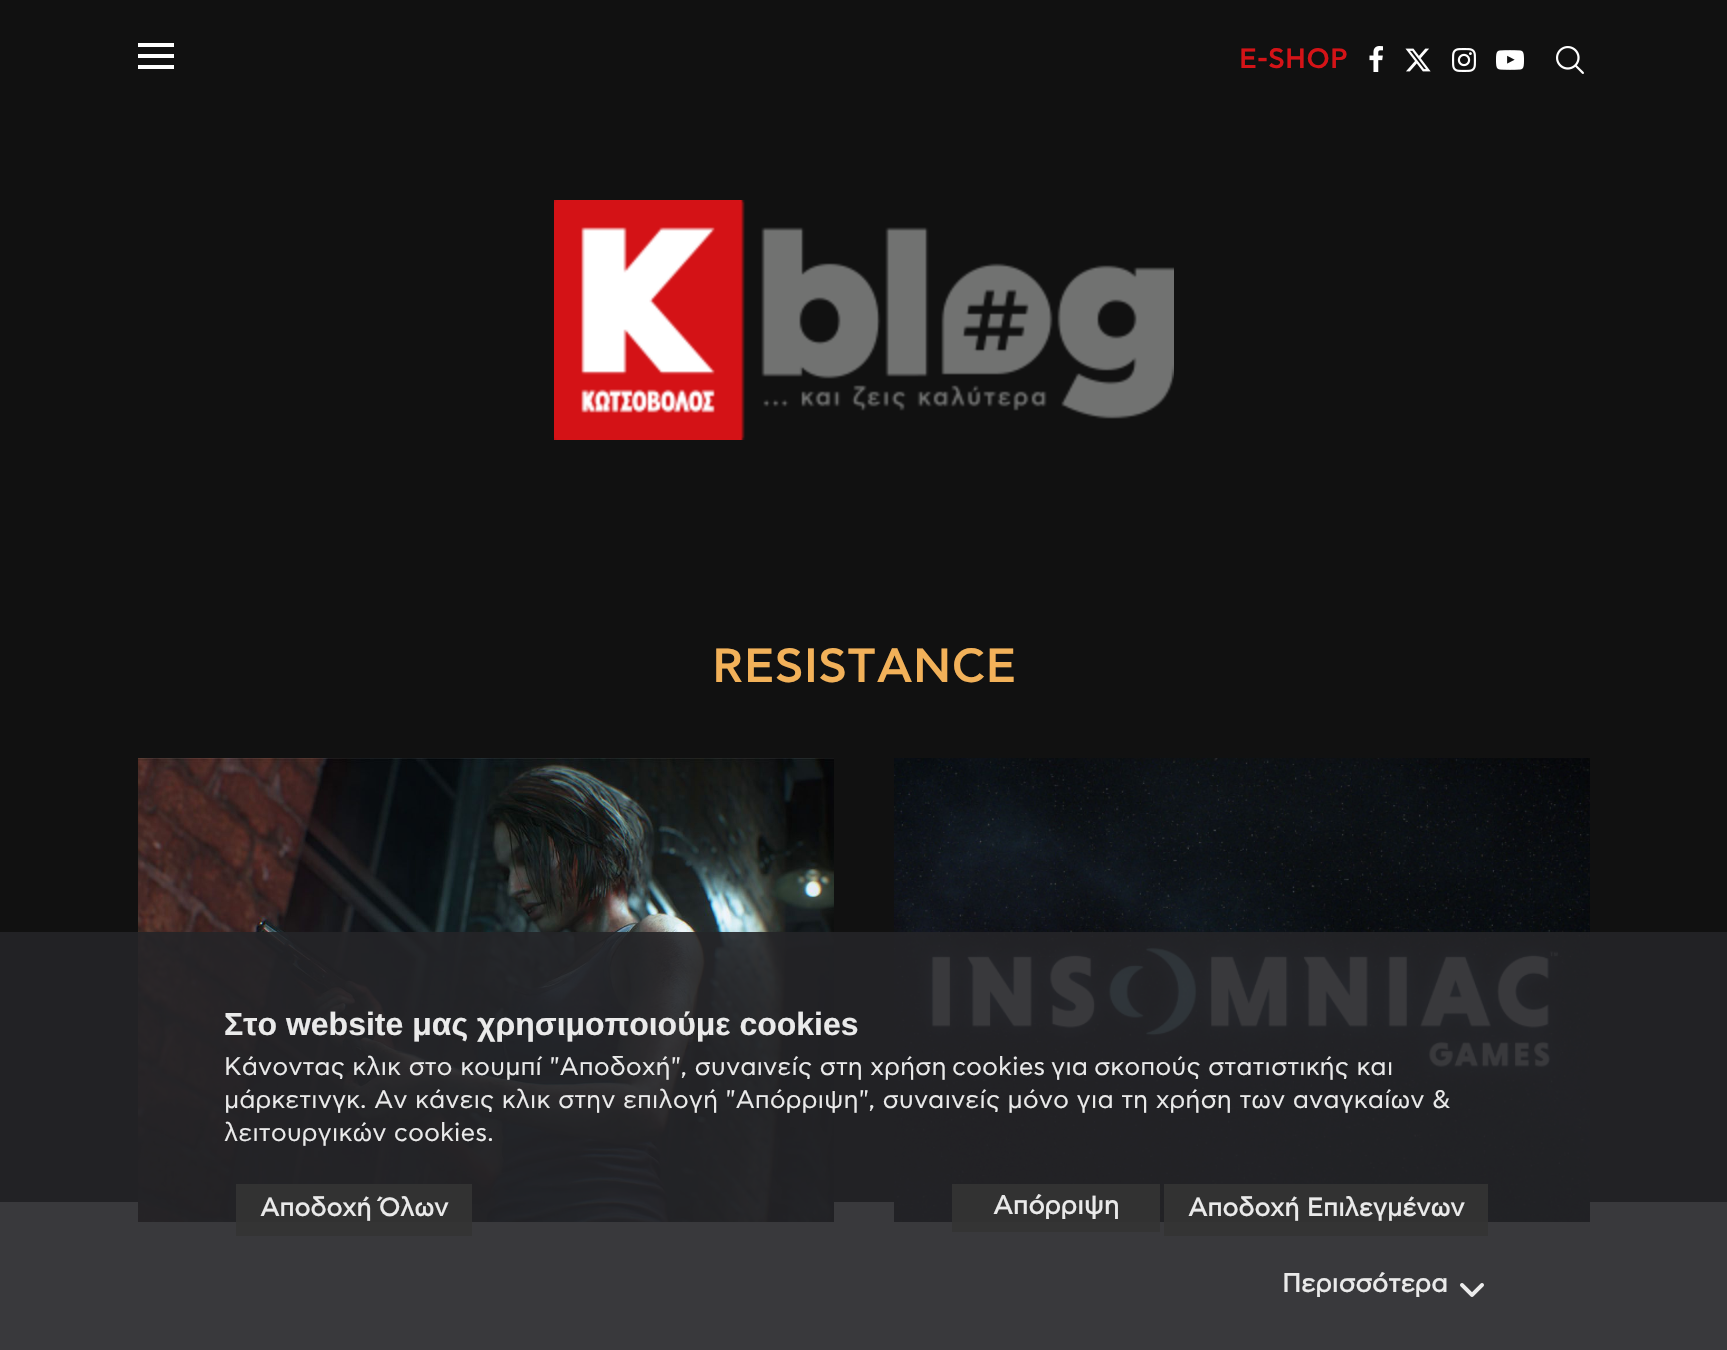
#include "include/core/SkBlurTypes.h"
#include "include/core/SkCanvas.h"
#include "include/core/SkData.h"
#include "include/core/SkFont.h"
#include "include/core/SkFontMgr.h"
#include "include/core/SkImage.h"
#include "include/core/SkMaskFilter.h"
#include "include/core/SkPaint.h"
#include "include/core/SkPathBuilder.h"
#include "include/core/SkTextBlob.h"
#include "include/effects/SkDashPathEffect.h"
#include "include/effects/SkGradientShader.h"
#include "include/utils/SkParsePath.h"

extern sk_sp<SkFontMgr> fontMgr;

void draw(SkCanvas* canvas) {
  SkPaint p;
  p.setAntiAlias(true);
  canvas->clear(SK_ColorWHITE);
  p.setColor(SkColorSetRGB(17, 17, 17));
  canvas->drawRect(SkRect::MakeLTRB(0, 0, 1727, 1202), p);
  p.setColor(SK_ColorWHITE);
  canvas->drawRect(SkRect::MakeLTRB(138, 43, 174, 47), p);
  canvas->drawRect(SkRect::MakeLTRB(138, 54, 174, 58), p);
  canvas->drawRect(SkRect::MakeLTRB(138, 65, 174, 69), p);
  canvas->drawImageRect(SkImages::DeferredFromEncodedData(SkData::MakeFromFileName("images/1.png")), SkRect::MakeLTRB(1369, 46, 1383, 72), SkSamplingOptions());
  canvas->drawImageRect(SkImages::DeferredFromEncodedData(SkData::MakeFromFileName("images/2.png")), SkRect::MakeLTRB(1405, 48, 1431, 72), SkSamplingOptions());
  canvas->drawImageRect(SkImages::DeferredFromEncodedData(SkData::MakeFromFileName("images/3.png")), SkRect::MakeLTRB(1452, 48, 1476, 72), SkSamplingOptions());
  canvas->drawImageRect(SkImages::DeferredFromEncodedData(SkData::MakeFromFileName("images/4.png")), SkRect::MakeLTRB(1496, 50, 1524, 70), SkSamplingOptions());
  canvas->drawImageRect(SkImages::DeferredFromEncodedData(SkData::MakeFromFileName("images/5.png")), SkRect::MakeLTRB(1556, 46, 1584, 74), SkSamplingOptions());
  canvas->drawImageRect(SkImages::DeferredFromEncodedData(SkData::MakeFromFileName("images/6.png")), SkRect::MakeLTRB(554, 200, 1174, 440), SkSamplingOptions());
  canvas->drawImageRect(SkImages::DeferredFromEncodedData(SkData::MakeFromFileName("images/7.png")), SkRect::MakeLTRB(138, 758, 834, 1222), SkSamplingOptions());
  canvas->drawImageRect(SkImages::DeferredFromEncodedData(SkData::MakeFromFileName("images/8.png")), SkRect::MakeLTRB(894, 758, 1590, 1222), SkSamplingOptions());
  p.setColor(SkColorSetARGB(230, 36, 36, 39));
  canvas->drawRect(SkRect::MakeLTRB(0, 932, 1727, 1350), p);
  p.setColor(SkColorSetARGB(230, 51, 51, 51));
  canvas->drawRect(SkRect::MakeLTRB(236, 1184, 472, 1236), p);
  canvas->drawRect(SkRect::MakeLTRB(952, 1184, 1160, 1232), p);
  canvas->drawRect(SkRect::MakeLTRB(1164, 1184, 1488, 1236), p);
  canvas->drawImageRect(SkImages::DeferredFromEncodedData(SkData::MakeFromFileName("images/9.png")), SkRect::MakeLTRB(1460, 1283, 1484, 1297), SkSamplingOptions());
  SkFont font1(fontMgr->matchFamilyStyle("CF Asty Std", SkFontStyle(500, SkFontStyle::kNormal_Width, SkFontStyle::kUpright_Slant)), 28);
  font1.setSubpixel(true);
  p.setColor(SkColorSetRGB(213, 19, 23));
  canvas->drawString("E-SHOP", 1239, 68, font1, p);
  SkFont font2(fontMgr->matchFamilyStyle("CF Asty Std", SkFontStyle(500, SkFontStyle::kNormal_Width, SkFontStyle::kUpright_Slant)), 48);
  font2.setSubpixel(true);
  p.setColor(SkColorSetRGB(242, 177, 89));
  canvas->drawString("RESISTANCE", 712, 682, font2, p);
  SkFont font3(fontMgr->matchFamilyStyle("Liberation Sans", SkFontStyle::Bold()), 32);
  font3.setSubpixel(true);
  p.setColor(SkColorSetRGB(234, 234, 234));
  canvas->drawString("Στο website μας χρησιμοποιούμε cookies", 224, 1035, font3, p);
  SkFont font4(fontMgr->matchFamilyStyle("CF Asty Std", SkFontStyle::Normal()), 25.35f);
  font4.setSubpixel(true);
  canvas->drawString("Κάνοντας κλικ στο κουμπί \"Αποδοχή\", συναινείς στη χρήση", 224, 1075, font4, p);
  canvas->drawString("cookies", 952, 1075, font4, p);
  canvas->drawString("για", 1051, 1075, font4, p);
  canvas->drawString("σκοπούς στατιστικής και", 1094, 1075, font4, p);
  canvas->drawString("μάρκετινγκ. Αν κάνεις κλικ στην επιλογή \"Απόρριψη\", συναινείς μόνο για τη χρήση των αναγκαίων &", 224, 1108, font4, p);
  canvas->drawString("λειτουργικών cookies.", 224, 1141, font4, p);
  SkFont font5(fontMgr->matchFamilyStyle("CF Asty Std", SkFontStyle::Bold()), 25.35f);
  font5.setSubpixel(true);
  canvas->drawString("Αποδοχή Όλων", 260, 1216, font5, p);
  SkFont font6(fontMgr->matchFamilyStyle("CF Asty Std", SkFontStyle::Bold()), 26);
  font6.setSubpixel(true);
  canvas->drawString("Απόρριψη", 993, 1214, font6, p);
  canvas->drawString("Αποδοχή Επιλεγμένων", 1188, 1216, font5, p);
  canvas->drawString("Περισσότερα", 1282, 1292, font6, p);
}
